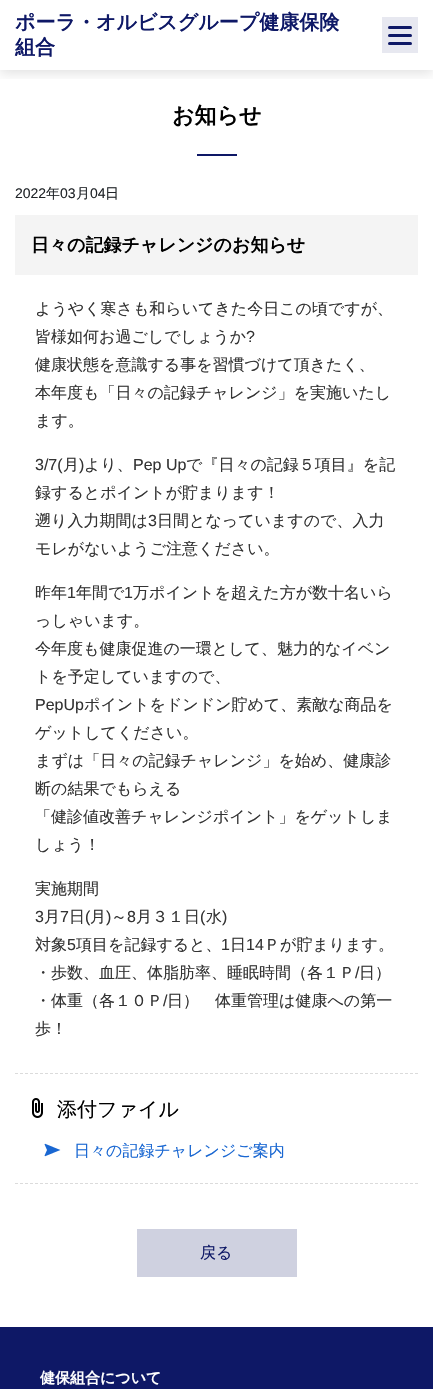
#include "include/core/SkBlurTypes.h"
#include "include/core/SkCanvas.h"
#include "include/core/SkData.h"
#include "include/core/SkFont.h"
#include "include/core/SkFontMgr.h"
#include "include/core/SkImage.h"
#include "include/core/SkMaskFilter.h"
#include "include/core/SkPaint.h"
#include "include/core/SkPathBuilder.h"
#include "include/core/SkTextBlob.h"
#include "include/effects/SkDashPathEffect.h"
#include "include/effects/SkGradientShader.h"
#include "include/utils/SkParsePath.h"

extern sk_sp<SkFontMgr> fontMgr;

void draw(SkCanvas* canvas) {
  SkPaint p;
  p.setAntiAlias(true);
  canvas->clear(SK_ColorWHITE);
  canvas->save();
  canvas->clipRect(SkRect::MakeLTRB(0, 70, 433, 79));
  p.setColor(SkColorSetARGB(31, 0, 0, 0));
  p.setMaskFilter(SkMaskFilter::MakeBlur(kNormal_SkBlurStyle, 6));
  canvas->drawRect(SkRect::MakeLTRB(0, 3, 433, 73), p);
  p.setMaskFilter(nullptr);
  canvas->restore();
  p.setColor(SkColorSetRGB(231, 232, 240));
  canvas->drawRect(SkRect::MakeLTRB(382, 17, 418, 53), p);
  p.setColor(SkColorSetRGB(14, 24, 102));
  canvas->drawRoundRect(SkRect::MakeLTRB(388, 26, 412, 29), 1.5f, 1.5f, p);
  canvas->drawRoundRect(SkRect::MakeLTRB(388, 34, 412, 37), 1.5f, 1.5f, p);
  canvas->drawRoundRect(SkRect::MakeLTRB(388, 42, 412, 45), 1.5f, 1.5f, p);
  canvas->drawRect(SkRect::MakeLTRB(197, 154, 237, 156), p);
  p.setColor(SkColorSetRGB(244, 244, 244));
  canvas->drawRect(SkRect::MakeLTRB(15, 215, 418, 275), p);
  p.setStyle(SkPaint::kStroke_Style);
  p.setStrokeWidth(1);
  p.setColor(SkColorSetRGB(219, 219, 219));
  p.setPathEffect(SkDashPathEffect::Make({{3, 2}}, 0));
  canvas->drawPath(SkPathBuilder().moveTo(15, 1073.5f).lineTo(418, 1073.5f).detach(), p);
  p.setPathEffect(nullptr);
  p.setPathEffect(SkDashPathEffect::Make({{3, 2}}, 0));
  canvas->drawPath(SkPathBuilder().moveTo(15, 1183.5f).lineTo(418, 1183.5f).detach(), p);
  p.setPathEffect(nullptr);
  canvas->drawImageRect(SkImages::DeferredFromEncodedData(SkData::MakeFromFileName("images/1.png")), SkRect::MakeLTRB(32, 1098, 43, 1118), SkSamplingOptions());
  canvas->drawImageRect(SkImages::DeferredFromEncodedData(SkData::MakeFromFileName("images/2.png")), SkRect::MakeLTRB(44, 1143, 61, 1157), SkSamplingOptions());
  p.setStyle(SkPaint::kFill_Style);
  p.setColor(SkColorSetRGB(207, 209, 224));
  canvas->drawRect(SkRect::MakeLTRB(137, 1229, 297, 1277), p);
  p.setColor(SkColorSetRGB(14, 24, 102));
  canvas->drawRect(SkRect::MakeLTRB(0, 1327, 433, 1389), p);
  SkFont font1(fontMgr->matchFamilyStyle("WenQuanYi Zen Hei", SkFontStyle::Bold()), 20);
  font1.setSubpixel(true);
  canvas->drawString("ポーラ・オルビスグループ健康保険", 15, 29, font1, p);
  canvas->drawString("組合", 15, 54, font1, p);
  SkFont font2(fontMgr->matchFamilyStyle("WenQuanYi Zen Hei", SkFontStyle::Bold()), 22);
  font2.setSubpixel(true);
  p.setColor(SK_ColorBLACK);
  canvas->drawString("お知らせ", 172, 123, font2, p);
  SkFont font3(fontMgr->matchFamilyStyle("Liberation Sans", SkFontStyle::Normal()), 14);
  font3.setSubpixel(true);
  p.setColor(SkColorSetRGB(33, 37, 41));
  canvas->drawString("2022", 15, 198, font3, p);
  SkFont font4(fontMgr->matchFamilyStyle("WenQuanYi Zen Hei", SkFontStyle(500, SkFontStyle::kNormal_Width, SkFontStyle::kUpright_Slant)), 14);
  font4.setSubpixel(true);
  canvas->drawString("年", 46, 198, font4, p);
  canvas->drawString("03", 60, 198, font3, p);
  canvas->drawString("月", 76, 198, font4, p);
  canvas->drawString("04", 90, 198, font3, p);
  canvas->drawString("日", 105, 198, font4, p);
  SkFont font5(fontMgr->matchFamilyStyle("WenQuanYi Zen Hei", SkFontStyle::Bold()), 18);
  font5.setSubpixel(true);
  p.setColor(SK_ColorBLACK);
  canvas->drawString("日々の記録チャレンジのお知らせ", 31, 251, font5, p);
  SkFont font6(fontMgr->matchFamilyStyle("WenQuanYi Zen Hei", SkFontStyle(500, SkFontStyle::kNormal_Width, SkFontStyle::kUpright_Slant)), 16);
  font6.setSubpixel(true);
  p.setColor(SkColorSetRGB(51, 51, 51));
  canvas->drawString("ようやく寒さも和らいてきた今日この頃ですが、", 35, 314, font6, p);
  canvas->drawString("皆様如何お過ごしでしょうか", 35, 342, font6, p);
  SkFont font7(fontMgr->matchFamilyStyle("Liberation Sans", SkFontStyle::Normal()), 16);
  font7.setSubpixel(true);
  canvas->drawString("?", 246, 342, font7, p);
  canvas->drawString("健康状態を意識する事を習慣づけて頂きたく、", 35, 370, font6, p);
  canvas->drawString("本年度も「日々の記録チャレンジ」を実施いたし", 35, 398, font6, p);
  canvas->drawString("ます。", 35, 426, font6, p);
  canvas->drawString("3/7(", 35, 470, font7, p);
  canvas->drawString("月", 63, 470, font6, p);
  canvas->drawString(")", 79, 470, font7, p);
  canvas->drawString("より、", 84, 470, font6, p);
  canvas->drawString("Pep Up", 133, 470, font7, p);
  canvas->drawString("で『日々の記録５項目』を記", 186, 470, font6, p);
  canvas->drawString("録するとポイントが貯まります！", 35, 498, font6, p);
  canvas->drawString("遡り入力期間は", 35, 526, font6, p);
  canvas->drawString("3", 148, 526, font7, p);
  canvas->drawString("日間となっていますので、入力", 157, 526, font6, p);
  canvas->drawString("モレがないようご注意ください。", 35, 554, font6, p);
  canvas->drawString("昨年", 35, 598, font6, p);
  canvas->drawString("1", 67, 598, font7, p);
  canvas->drawString("年間で", 76, 598, font6, p);
  canvas->drawString("1", 124, 598, font7, p);
  canvas->drawString("万ポイントを超えた方が数十名いら", 133, 598, font6, p);
  canvas->drawString("っしゃいます。", 35, 626, font6, p);
  canvas->drawString("今年度も健康促進の一環として、魅力的なイベン", 35, 654, font6, p);
  canvas->drawString("トを予定していますので、", 35, 682, font6, p);
  canvas->drawString("PepUp", 35, 710, font7, p);
  canvas->drawString("ポイントをドンドン貯めて、素敵な商品を", 84, 710, font6, p);
  canvas->drawString("ゲットしてください。", 35, 738, font6, p);
  canvas->drawString("まずは「日々の記録チャレンジ」を始め、健康診", 35, 766, font6, p);
  canvas->drawString("断の結果でもらえる", 35, 794, font6, p);
  canvas->drawString("「健診値改善チャレンジポイント」をゲットしま", 35, 822, font6, p);
  canvas->drawString("しょう！", 35, 850, font6, p);
  canvas->drawString("実施期間", 35, 894, font6, p);
  canvas->drawString("3", 35, 922, font7, p);
  canvas->drawString("月", 44, 922, font6, p);
  canvas->drawString("7", 60, 922, font7, p);
  canvas->drawString("日", 69, 922, font6, p);
  canvas->drawString("(", 85, 922, font7, p);
  canvas->drawString("月", 90, 922, font6, p);
  canvas->drawString(")", 106, 922, font7, p);
  canvas->drawString("～", 111, 922, font6, p);
  canvas->drawString("8", 127, 922, font7, p);
  canvas->drawString("月３１日", 136, 922, font6, p);
  canvas->drawString("(", 200, 922, font7, p);
  canvas->drawString("水", 206, 922, font6, p);
  canvas->drawString(")", 222, 922, font7, p);
  canvas->drawString("対象", 35, 950, font6, p);
  canvas->drawString("5", 67, 950, font7, p);
  canvas->drawString("項目を記録すると、", 76, 950, font6, p);
  canvas->drawString("1", 221, 950, font7, p);
  canvas->drawString("日", 230, 950, font6, p);
  canvas->drawString("14", 246, 950, font7, p);
  canvas->drawString("Ｐが貯まります。", 264, 950, font6, p);
  canvas->drawString("・歩数、血圧、体脂肪率、睡眠時間（各１Ｐ", 35, 978, font6, p);
  canvas->drawString("/", 355, 978, font7, p);
  canvas->drawString("日）", 359, 978, font6, p);
  canvas->drawString("・体重（各１０Ｐ", 35, 1006, font6, p);
  canvas->drawString("/", 163, 1006, font7, p);
  canvas->drawString("日）　体重管理は健康への第一", 167, 1006, font6, p);
  canvas->drawString("歩！", 35, 1034, font6, p);
  SkFont font8(fontMgr->matchFamilyStyle("WenQuanYi Zen Hei", SkFontStyle(500, SkFontStyle::kNormal_Width, SkFontStyle::kUpright_Slant)), 20);
  font8.setSubpixel(true);
  p.setColor(SK_ColorBLACK);
  canvas->drawString("添付ファイル", 57, 1116, font8, p);
  p.setColor(SkColorSetRGB(25, 103, 210));
  canvas->drawString("日々の記録チャレンジご案内", 74, 1156, font6, p);
  p.setColor(SkColorSetRGB(14, 24, 102));
  canvas->drawString("戻る", 200, 1258, font6, p);
  SkFont font9(fontMgr->matchFamilyStyle("WenQuanYi Zen Hei", SkFontStyle::Bold()), 15);
  font9.setSubpixel(true);
  p.setColor(SK_ColorWHITE);
  canvas->drawString("健保組合について", 40, 1383, font9, p);
}
